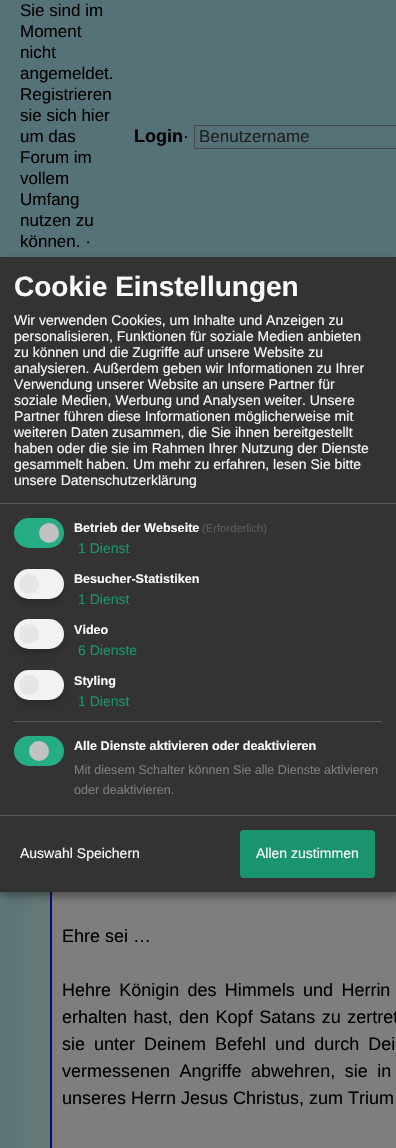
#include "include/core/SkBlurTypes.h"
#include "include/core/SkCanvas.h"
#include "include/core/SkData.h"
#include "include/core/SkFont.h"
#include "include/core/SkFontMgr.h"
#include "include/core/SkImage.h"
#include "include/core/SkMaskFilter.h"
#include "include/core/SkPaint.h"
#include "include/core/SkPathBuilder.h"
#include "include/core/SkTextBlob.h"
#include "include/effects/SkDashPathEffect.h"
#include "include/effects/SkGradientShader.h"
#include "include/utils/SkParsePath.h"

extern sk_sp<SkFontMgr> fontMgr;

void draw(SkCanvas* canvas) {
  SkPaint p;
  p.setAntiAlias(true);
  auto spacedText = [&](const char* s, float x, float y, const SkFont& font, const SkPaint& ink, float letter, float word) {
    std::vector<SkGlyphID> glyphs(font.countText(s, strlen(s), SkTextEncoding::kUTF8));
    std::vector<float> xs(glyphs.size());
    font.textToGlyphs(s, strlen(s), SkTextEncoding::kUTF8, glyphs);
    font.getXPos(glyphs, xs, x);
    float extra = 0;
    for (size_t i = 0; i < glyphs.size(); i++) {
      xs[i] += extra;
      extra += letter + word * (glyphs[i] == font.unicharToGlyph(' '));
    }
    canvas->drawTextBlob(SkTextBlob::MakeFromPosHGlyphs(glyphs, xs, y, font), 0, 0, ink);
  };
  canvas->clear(SkColorSetRGB(92, 118, 118));
  p.setColor(SkColorSetRGB(86, 114, 121));
  canvas->drawRect(SkRect::MakeLTRB(0, 0, 396, 257), p);
  p.setStyle(SkPaint::kStroke_Style);
  p.setStrokeWidth(1);
  p.setColor(SkColorSetRGB(72, 73, 72));
  canvas->drawRect(SkRect::MakeLTRB(194.5f, 125.5f, 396.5f, 148.5f), p);
  canvas->drawImageRect(SkImages::DeferredFromEncodedData(SkData::MakeFromFileName("images/1.png")), SkRect::MakeLTRB(18, 892, 50, 1148), SkSamplingOptions());
  p.setStyle(SkPaint::kFill_Style);
  p.setColor(SkColorSetRGB(4, 14, 123));
  canvas->drawRect(SkRect::MakeLTRB(50, 892, 51, 1148), p);
  p.setColor(SkColorSetRGB(126, 126, 126));
  canvas->drawRect(SkRect::MakeLTRB(52, 892, 396, 1148), p);
  p.setColor(SkColorSetRGB(10, 6, 121));
  canvas->drawRect(SkRect::MakeLTRB(51, 892, 52, 1148), p);
  p.setColor(SkColorSetARGB(48, 0, 0, 0));
  p.setMaskFilter(SkMaskFilter::MakeBlur(kNormal_SkBlurStyle, 5));
  canvas->drawRect(SkRect::MakeLTRB(5, 262, 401, 897), p);
  p.setMaskFilter(nullptr);
  p.setColor(SkColorSetARGB(51, 0, 0, 0));
  p.setMaskFilter(SkMaskFilter::MakeBlur(kNormal_SkBlurStyle, 3));
  canvas->drawRect(SkRect::MakeLTRB(0, 261, 396, 896), p);
  p.setMaskFilter(nullptr);
  p.setColor(SkColorSetRGB(51, 51, 51));
  canvas->drawRect(SkRect::MakeLTRB(0, 257, 396, 892), p);
  p.setColor(SkColorSetRGB(92, 92, 92));
  canvas->drawRect(SkRect::MakeLTRB(0, 503, 396, 504), p);
  p.setColor(SkColorSetRGB(39, 173, 133));
  canvas->drawRoundRect(SkRect::MakeLTRB(14, 518, 64, 548), 15, 15, p);
  p.setColor(SkColorSetRGB(194, 194, 194));
  canvas->drawCircle(49, 533, 10, p);
  p.setColor(SkColorSetARGB(51, 0, 0, 0));
  p.setMaskFilter(SkMaskFilter::MakeBlur(kNormal_SkBlurStyle, 3));
  canvas->drawRoundRect(SkRect::MakeLTRB(14, 573, 64, 603), 15, 15, p);
  p.setMaskFilter(nullptr);
  p.setColor(SkColorSetRGB(242, 242, 242));
  canvas->drawRoundRect(SkRect::MakeLTRB(14, 569, 64, 599), 15, 15, p);
  p.setColor(SkColorSetRGB(230, 230, 230));
  canvas->drawCircle(29, 584, 10, p);
  p.setColor(SkColorSetARGB(51, 0, 0, 0));
  p.setMaskFilter(SkMaskFilter::MakeBlur(kNormal_SkBlurStyle, 3));
  canvas->drawRoundRect(SkRect::MakeLTRB(14, 623, 64, 653), 15, 15, p);
  p.setMaskFilter(nullptr);
  p.setColor(SkColorSetRGB(242, 242, 242));
  canvas->drawRoundRect(SkRect::MakeLTRB(14, 619, 64, 649), 15, 15, p);
  p.setColor(SkColorSetRGB(230, 230, 230));
  canvas->drawCircle(29, 634, 10, p);
  p.setColor(SkColorSetARGB(51, 0, 0, 0));
  p.setMaskFilter(SkMaskFilter::MakeBlur(kNormal_SkBlurStyle, 3));
  canvas->drawRoundRect(SkRect::MakeLTRB(14, 674, 64, 704), 15, 15, p);
  p.setMaskFilter(nullptr);
  p.setColor(SkColorSetRGB(242, 242, 242));
  canvas->drawRoundRect(SkRect::MakeLTRB(14, 670, 64, 700), 15, 15, p);
  p.setColor(SkColorSetRGB(230, 230, 230));
  canvas->drawCircle(29, 685, 10, p);
  p.setColor(SkColorSetRGB(92, 92, 92));
  canvas->drawRect(SkRect::MakeLTRB(14, 721, 382, 722), p);
  p.setColor(SkColorSetRGB(39, 173, 133));
  canvas->drawRoundRect(SkRect::MakeLTRB(14, 736, 64, 766), 15, 15, p);
  p.setColor(SkColorSetRGB(194, 194, 194));
  canvas->drawCircle(39, 751, 10, p);
  p.setColor(SkColorSetRGB(92, 92, 92));
  canvas->drawRect(SkRect::MakeLTRB(0, 815, 396, 816), p);
  p.setColor(SkColorSetRGB(26, 147, 111));
  canvas->drawRoundRect(SkRect::MakeLTRB(240, 830, 375, 878), 4, 4, p);
  SkFont font1(fontMgr->matchFamilyStyle("Liberation Sans", SkFontStyle::Normal()), 17);
  font1.setSubpixel(true);
  p.setColor(SkColorSetRGB(3, 0, 0));
  canvas->drawString("Sie sind im", 20, 16, font1, p);
  canvas->drawString("Moment", 20, 37, font1, p);
  canvas->drawString("nicht", 20, 58, font1, p);
  canvas->drawString("angemeldet.", 20, 79, font1, p);
  canvas->drawString("Registrieren", 20, 100, font1, p);
  canvas->drawString("sie sich hier", 20, 121, font1, p);
  canvas->drawString("um das", 20, 142, font1, p);
  canvas->drawString("Forum im", 20, 163, font1, p);
  canvas->drawString("vollem", 20, 184, font1, p);
  canvas->drawString("Umfang", 20, 205, font1, p);
  canvas->drawString("nutzen zu", 20, 226, font1, p);
  canvas->drawString("können. ·", 20, 247, font1, p);
  SkFont font2(fontMgr->matchFamilyStyle("Liberation Sans", SkFontStyle::Bold()), 18);
  font2.setSubpixel(true);
  canvas->drawString("Login", 134, 142, font2, p);
  SkFont font3(fontMgr->matchFamilyStyle("Liberation Sans", SkFontStyle::Normal()), 18);
  font3.setSubpixel(true);
  canvas->drawString("·", 183, 142, font3, p);
  p.setColor(SkColorSetRGB(31, 31, 31));
  canvas->drawString("Benutzername", 199, 142, font1, p);
  p.setColor(SkColorSetRGB(3, 0, 0));
  canvas->drawString("Ehre sei …", 62, 942, font3, p);
  spacedText("Hehre Königin des Himmels und Herrin", 62, 996, font3, p, 0, 3.25f);
  spacedText("erhalten hast, den Kopf Satans zu zertret", 62, 1023, font3, p, 0, 1.5f);
  spacedText("sie unter Deinem Befehl und durch Dei", 62, 1050, font3, p, 0, 4);
  spacedText("vermessenen Angriffe abwehren, sie in", 62, 1077, font3, p, 0, 4.5f);
  canvas->drawString("unseres Herrn Jesus Christus, zum Trium", 62, 1104, font3, p);
  SkFont font4(fontMgr->matchFamilyStyle("Liberation Sans", SkFontStyle::Bold()), 28);
  font4.setSubpixel(true);
  p.setColor(SkColorSetRGB(250, 250, 250));
  canvas->drawString("Cookie Einstellungen", 14, 296, font4, p);
  SkFont font5(fontMgr->matchFamilyStyle("Liberation Sans", SkFontStyle::Normal()), 14);
  font5.setSubpixel(true);
  canvas->drawString("Wir verwenden Cookies, um Inhalte und Anzeigen zu", 14, 325, font5, p);
  canvas->drawString("personalisieren, Funktionen für soziale Medien anbieten", 14, 341, font5, p);
  canvas->drawString("zu können und die Zugriffe auf unsere Website zu", 14, 357, font5, p);
  canvas->drawString("analysieren. Außerdem geben wir Informationen zu Ihrer", 14, 373, font5, p);
  canvas->drawString("Verwendung unserer Website an unsere Partner für", 14, 389, font5, p);
  canvas->drawString("soziale Medien, Werbung und Analysen weiter. Unsere", 14, 405, font5, p);
  canvas->drawString("Partner führen diese Informationen möglicherweise mit", 14, 421, font5, p);
  canvas->drawString("weiteren Daten zusammen, die Sie ihnen bereitgestellt", 14, 437, font5, p);
  canvas->drawString("haben oder die sie im Rahmen Ihrer Nutzung der Dienste", 14, 453, font5, p);
  canvas->drawString("gesammelt haben. Um mehr zu erfahren, lesen Sie bitte", 14, 469, font5, p);
  canvas->drawString("unsere Datenschutzerklärung", 14, 485, font5, p);
  SkFont font6(fontMgr->matchFamilyStyle("Liberation Sans", SkFontStyle::Bold()), 12.6f);
  font6.setSubpixel(true);
  canvas->drawString("Betrieb der Webseite", 74, 532, font6, p);
  SkFont font7(fontMgr->matchFamilyStyle("Liberation Sans", SkFontStyle::Normal()), 11.25f);
  font7.setSubpixel(true);
  p.setColor(SkColorSetRGB(92, 92, 92));
  canvas->drawString("(Erforderlich)", 202, 532, font7, p);
  p.setColor(SkColorSetRGB(26, 147, 111));
  canvas->drawString("1 Dienst", 78, 553, font5, p);
  p.setColor(SkColorSetRGB(250, 250, 250));
  canvas->drawString("Besucher-Statistiken", 74, 583, font6, p);
  p.setColor(SkColorSetRGB(26, 147, 111));
  canvas->drawString("1 Dienst", 78, 604, font5, p);
  p.setColor(SkColorSetRGB(250, 250, 250));
  canvas->drawString("Video", 74, 634, font6, p);
  p.setColor(SkColorSetRGB(26, 147, 111));
  canvas->drawString("6 Dienste", 78, 655, font5, p);
  p.setColor(SkColorSetRGB(250, 250, 250));
  canvas->drawString("Styling", 74, 685, font6, p);
  p.setColor(SkColorSetRGB(26, 147, 111));
  canvas->drawString("1 Dienst", 78, 706, font5, p);
  p.setColor(SkColorSetRGB(250, 250, 250));
  canvas->drawString("Alle Dienste aktivieren oder deaktivieren", 74, 750, font6, p);
  SkFont font8(fontMgr->matchFamilyStyle("Liberation Sans", SkFontStyle::Normal()), 12.6f);
  font8.setSubpixel(true);
  p.setColor(SkColorSetRGB(124, 124, 124));
  canvas->drawString("Mit diesem Schalter können Sie alle Dienste aktivieren", 74, 774, font8, p);
  canvas->drawString("oder deaktivieren.", 74, 794, font8, p);
  p.setColor(SkColorSetRGB(250, 250, 250));
  canvas->drawString("Auswahl Speichern", 20, 858, font5, p);
  canvas->drawString("Allen zustimmen", 256, 858, font5, p);
}
